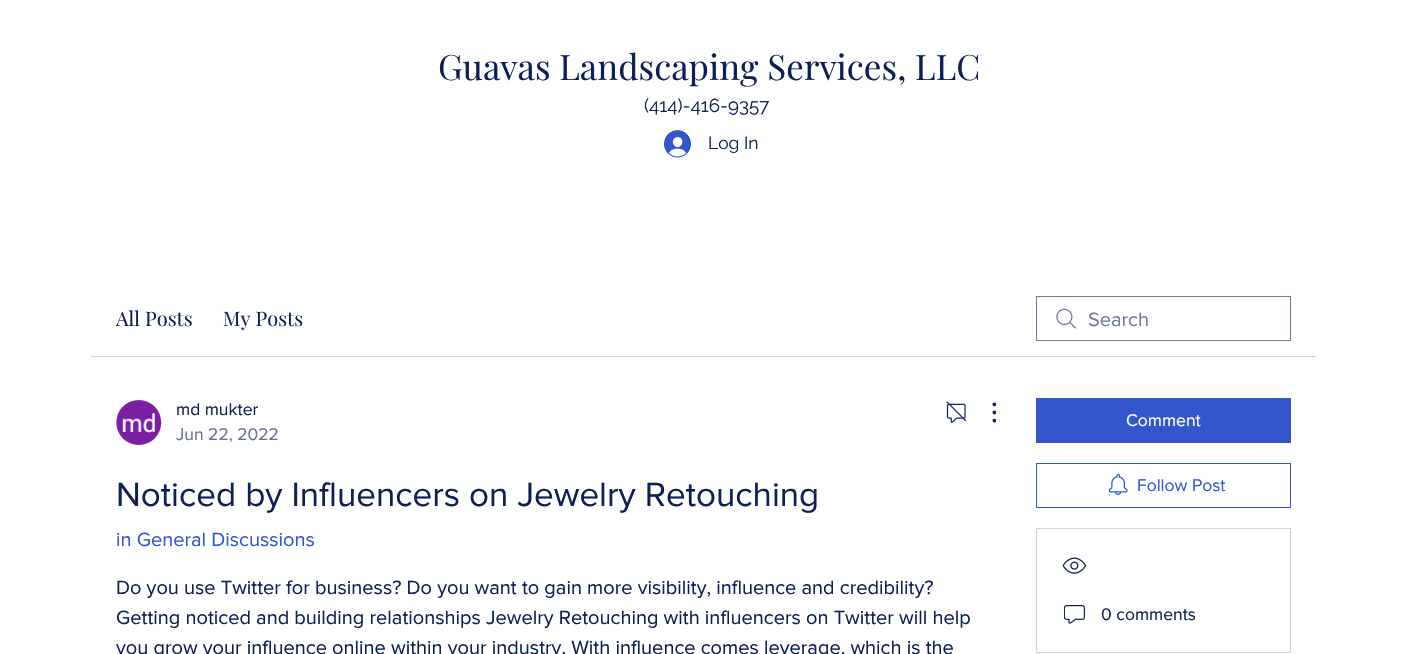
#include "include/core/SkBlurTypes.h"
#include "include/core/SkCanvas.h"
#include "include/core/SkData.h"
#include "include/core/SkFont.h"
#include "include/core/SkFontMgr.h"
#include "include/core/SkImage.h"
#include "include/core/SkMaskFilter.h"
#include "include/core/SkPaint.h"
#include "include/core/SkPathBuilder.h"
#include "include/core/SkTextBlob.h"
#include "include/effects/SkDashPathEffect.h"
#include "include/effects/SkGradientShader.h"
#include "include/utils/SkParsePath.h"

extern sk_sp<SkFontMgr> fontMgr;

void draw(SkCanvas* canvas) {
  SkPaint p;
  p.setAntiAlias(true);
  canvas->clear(SK_ColorWHITE);
  canvas->drawImageRect(SkImages::DeferredFromEncodedData(SkData::MakeFromFileName("images/1.png")), SkRect::MakeLTRB(664, 130, 691, 158), SkSamplingOptions());
  p.setColor(SkColorSetRGB(207, 210, 222));
  canvas->drawRect(SkRect::MakeLTRB(91, 356, 1316, 357), p);
  canvas->drawImageRect(SkImages::DeferredFromEncodedData(SkData::MakeFromFileName("images/2.png")), SkRect::MakeLTRB(1056, 308, 1077, 329), SkSamplingOptions());
  p.setStyle(SkPaint::kStroke_Style);
  p.setStrokeWidth(1);
  p.setColor(SkColorSetRGB(110, 121, 155));
  canvas->drawRect(SkRect::MakeLTRB(1036.5f, 296.5f, 1290.5f, 340.5f), p);
  canvas->drawImageRect(SkImages::DeferredFromEncodedData(SkData::MakeFromFileName("images/3.png")), SkRect::MakeLTRB(116, 400, 162, 445), SkSamplingOptions());
  canvas->drawImageRect(SkImages::DeferredFromEncodedData(SkData::MakeFromFileName("images/4.png")), SkRect::MakeLTRB(946, 401, 966, 423), SkSamplingOptions());
  canvas->drawImageRect(SkImages::DeferredFromEncodedData(SkData::MakeFromFileName("images/5.png")), SkRect::MakeLTRB(992, 402, 996, 423), SkSamplingOptions());
  p.setStyle(SkPaint::kFill_Style);
  p.setColor(SkColorSetRGB(51, 86, 204));
  canvas->drawRect(SkRect::MakeLTRB(1036, 398, 1291, 443), p);
  p.setStyle(SkPaint::kStroke_Style);
  canvas->drawRect(SkRect::MakeLTRB(1036.5f, 463.5f, 1290.5f, 507.5f), p);
  canvas->drawImageRect(SkImages::DeferredFromEncodedData(SkData::MakeFromFileName("images/6.png")), SkRect::MakeLTRB(1108, 473, 1128, 495), SkSamplingOptions());
  p.setColor(SkColorSetRGB(207, 210, 222));
  canvas->drawRect(SkRect::MakeLTRB(1036.5f, 528.5f, 1290.5f, 652.5f), p);
  canvas->drawImageRect(SkImages::DeferredFromEncodedData(SkData::MakeFromFileName("images/7.png")), SkRect::MakeLTRB(1062, 557, 1087, 574), SkSamplingOptions());
  canvas->drawImageRect(SkImages::DeferredFromEncodedData(SkData::MakeFromFileName("images/8.png")), SkRect::MakeLTRB(1064, 605, 1085, 624), SkSamplingOptions());
  SkFont font1(fontMgr->matchFamilyStyle("Playfair Display", SkFontStyle::Normal()), 35);
  font1.setSubpixel(true);
  p.setStyle(SkPaint::kFill_Style);
  p.setColor(SkColorSetRGB(14, 31, 88));
  canvas->drawString("Guavas Landscaping Services, LLC", 438, 80, font1, p);
  SkFont font2(fontMgr->matchFamilyStyle("Raleway", SkFontStyle::Normal()), 18.75f);
  font2.setSubpixel(true);
  canvas->drawString("(414)-416-9357", 644, 112, font2, p);
  SkFont font3(fontMgr->matchFamilyStyle("Raleway", SkFontStyle::Normal()), 17.5f);
  font3.setSubpixel(true);
  canvas->drawString("Log In", 708, 149, font3, p);
  SkFont font4(fontMgr->matchFamilyStyle("Playfair Display", SkFontStyle::Normal()), 20);
  font4.setSubpixel(true);
  canvas->drawString("All Posts", 116, 326, font4, p);
  canvas->drawString("My Posts", 223, 326, font4, p);
  SkFont font5(fontMgr->matchFamilyStyle("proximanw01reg", SkFontStyle::Normal()), 20);
  font5.setSubpixel(true);
  p.setColor(SkColorSetRGB(110, 121, 155));
  canvas->drawString("Search", 1088, 326, font5, p);
  SkFont font6(fontMgr->matchFamilyStyle("proximanw01reg", SkFontStyle::Normal()), 17.5f);
  font6.setSubpixel(true);
  p.setColor(SkColorSetRGB(14, 31, 88));
  canvas->drawString("md mukter", 176, 415, font6, p);
  p.setColor(SkColorSetRGB(101, 112, 148));
  canvas->drawString("Jun 22, 2022", 176, 440, font6, p);
  SkFont font7(fontMgr->matchFamilyStyle("proximanw01reg", SkFontStyle::Normal()), 35);
  font7.setSubpixel(true);
  p.setColor(SkColorSetRGB(14, 31, 88));
  canvas->drawString("Noticed by Influencers on Jewelry Retouching", 116, 506, font7, p);
  p.setColor(SkColorSetRGB(51, 86, 204));
  canvas->drawString("in General Discussions", 116, 546, font5, p);
  p.setColor(SkColorSetRGB(14, 31, 88));
  canvas->drawString("Do you use Twitter for business? Do you want to gain more visibility, influence and credibility?", 116, 594, font5, p);
  canvas->drawString("Getting noticed and building relationships Jewelry Retouching with influencers on Twitter will help", 116, 624, font5, p);
  canvas->drawString("you grow your influence online within your industry. With influence comes leverage, which is the", 116, 654, font5, p);
  p.setColor(SK_ColorWHITE);
  canvas->drawString("Comment", 1126, 426, font6, p);
  p.setColor(SkColorSetRGB(51, 86, 204));
  canvas->drawString("Follow Post", 1137, 491, font6, p);
  p.setColor(SkColorSetRGB(14, 31, 88));
  canvas->drawString("0 comments", 1101, 620, font6, p);
}
